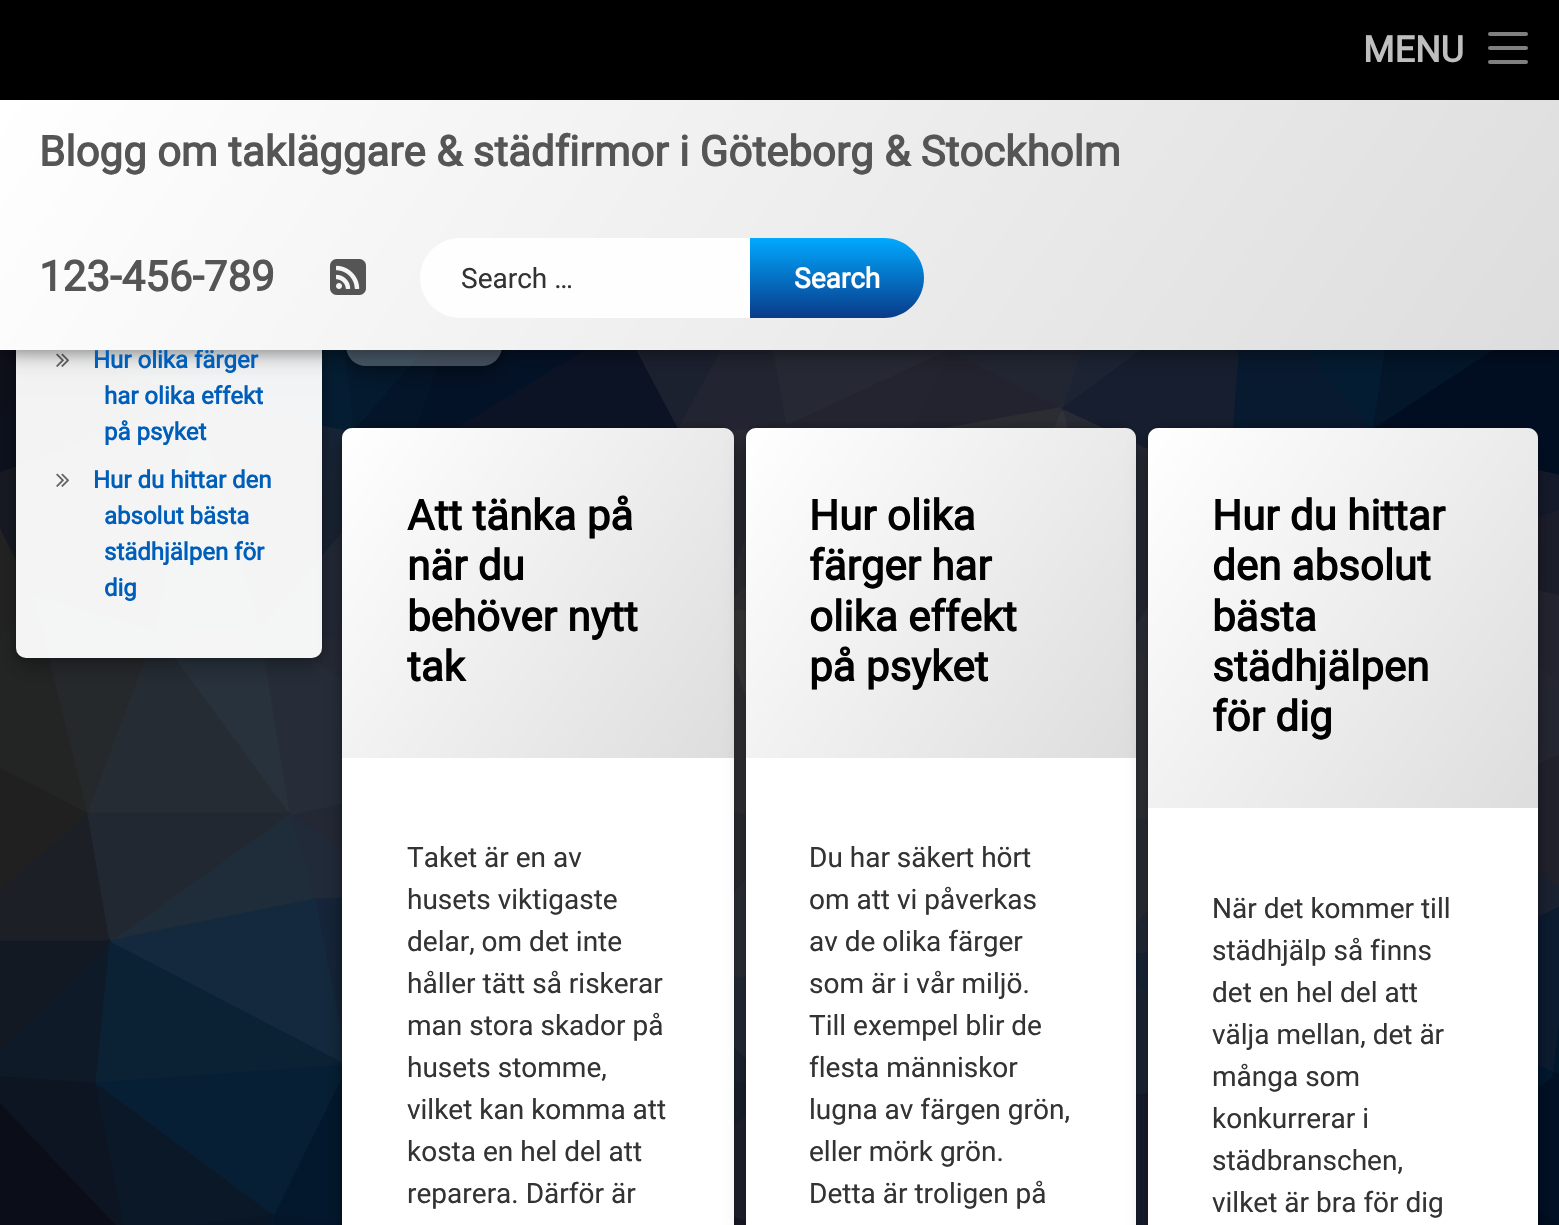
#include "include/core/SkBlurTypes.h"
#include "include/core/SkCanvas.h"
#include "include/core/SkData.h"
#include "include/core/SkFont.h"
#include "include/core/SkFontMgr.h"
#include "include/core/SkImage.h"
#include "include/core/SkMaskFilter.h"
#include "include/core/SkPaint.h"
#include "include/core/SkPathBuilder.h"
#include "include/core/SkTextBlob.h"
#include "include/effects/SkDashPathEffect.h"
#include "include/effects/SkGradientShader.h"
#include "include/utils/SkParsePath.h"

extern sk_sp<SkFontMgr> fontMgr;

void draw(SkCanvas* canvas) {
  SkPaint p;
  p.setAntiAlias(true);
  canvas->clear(SK_ColorWHITE);
  canvas->drawImageRect(SkImages::DeferredFromEncodedData(SkData::MakeFromFileName("images/4.png")), SkRect::MakeLTRB(0, 350, 1559, 1225), SkSamplingOptions());
  canvas->save();
  canvas->clipPath(SkPathBuilder(SkPathFillType::kEvenOdd).moveTo(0, 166).lineTo(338, 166).lineTo(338, 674).lineTo(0, 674).close().moveTo(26, 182).lineTo(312, 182).cubicTo(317.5f, 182, 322, 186.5f, 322, 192).lineTo(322, 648).cubicTo(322, 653.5f, 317.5f, 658, 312, 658).lineTo(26, 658).cubicTo(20.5f, 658, 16, 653.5f, 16, 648).lineTo(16, 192).cubicTo(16, 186.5f, 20.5f, 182, 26, 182).close().detach(), true);
  p.setColor(SkColorSetARGB(64, 0, 0, 0));
  p.setMaskFilter(SkMaskFilter::MakeBlur(kNormal_SkBlurStyle, 5));
  canvas->drawRoundRect(SkRect::MakeLTRB(16, 182, 322, 658), 10, 10, p);
  p.setMaskFilter(nullptr);
  canvas->restore();
  canvas->save();
  canvas->clipPath(SkPathBuilder(SkPathFillType::kEvenOdd).moveTo(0, 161).lineTo(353, 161).lineTo(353, 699).lineTo(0, 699).close().moveTo(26, 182).lineTo(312, 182).cubicTo(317.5f, 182, 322, 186.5f, 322, 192).lineTo(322, 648).cubicTo(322, 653.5f, 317.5f, 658, 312, 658).lineTo(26, 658).cubicTo(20.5f, 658, 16, 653.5f, 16, 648).lineTo(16, 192).cubicTo(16, 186.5f, 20.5f, 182, 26, 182).close().detach(), true);
  p.setMaskFilter(SkMaskFilter::MakeBlur(kNormal_SkBlurStyle, 10));
  canvas->drawRoundRect(SkRect::MakeLTRB(16, 192, 322, 668), 10, 10, p);
  p.setMaskFilter(nullptr);
  canvas->restore();
  p.setColor(SkColorSetARGB(242, 255, 255, 255));
  canvas->drawRoundRect(SkRect::MakeLTRB(16, 182, 322, 658), 10, 10, p);
  canvas->drawImageRect(SkImages::DeferredFromEncodedData(SkData::MakeFromFileName("images/2.png")), SkRect::MakeLTRB(56, 353, 69, 367), SkSamplingOptions());
  canvas->save();
  canvas->clipPath(SkPathBuilder(SkPathFillType::kEvenOdd).moveTo(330, 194).lineTo(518, 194).lineTo(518, 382).lineTo(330, 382).close().moveTo(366, 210).lineTo(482, 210).cubicTo(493, 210, 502, 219, 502, 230).lineTo(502, 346).cubicTo(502, 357, 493, 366, 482, 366).lineTo(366, 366).cubicTo(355, 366, 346, 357, 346, 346).lineTo(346, 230).cubicTo(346, 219, 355, 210, 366, 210).close().detach(), true);
  p.setColor(SkColorSetARGB(64, 0, 0, 0));
  p.setMaskFilter(SkMaskFilter::MakeBlur(kNormal_SkBlurStyle, 5));
  canvas->drawRoundRect(SkRect::MakeLTRB(346, 210, 502, 366), 20, 20, p);
  p.setMaskFilter(nullptr);
  canvas->restore();
  canvas->save();
  canvas->clipPath(SkPathBuilder(SkPathFillType::kEvenOdd).moveTo(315, 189).lineTo(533, 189).lineTo(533, 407).lineTo(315, 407).close().moveTo(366, 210).lineTo(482, 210).cubicTo(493, 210, 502, 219, 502, 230).lineTo(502, 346).cubicTo(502, 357, 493, 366, 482, 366).lineTo(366, 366).cubicTo(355, 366, 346, 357, 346, 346).lineTo(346, 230).cubicTo(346, 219, 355, 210, 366, 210).close().detach(), true);
  p.setMaskFilter(SkMaskFilter::MakeBlur(kNormal_SkBlurStyle, 10));
  canvas->drawRoundRect(SkRect::MakeLTRB(346, 220, 502, 376), 20, 20, p);
  p.setMaskFilter(nullptr);
  canvas->restore();
  {
    const SkColor colors[] = {SkColorSetARGB(64, 255, 255, 255), SkColorSetARGB(128, 255, 255, 255)};
    const float stops[] = {0, 1};
    const SkPoint ends[] = {{424, 366}, {424, 210}};
    p.setShader(SkGradientShader::MakeLinear(ends, colors, stops, 2, SkTileMode::kClamp));
    p.setAlpha(255);
  }
  canvas->drawRoundRect(SkRect::MakeLTRB(346, 210, 502, 366), 20, 20, p);
  p.setShader(nullptr);
  p.setColor(SkColorSetARGB(77, 0, 0, 0));
  p.setMaskFilter(SkMaskFilter::MakeBlur(kNormal_SkBlurStyle, 7));
  canvas->drawRect(SkRect::MakeLTRB(4, 104, 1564, 354), p);
  p.setMaskFilter(nullptr);
  p.setColor(SkColorSetARGB(51, 0, 0, 0));
  p.setMaskFilter(SkMaskFilter::MakeBlur(kNormal_SkBlurStyle, 15));
  canvas->drawRect(SkRect::MakeLTRB(0, 100, 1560, 350), p);
  p.setMaskFilter(nullptr);
  p.setColor(SK_ColorBLACK);
  canvas->drawRect(SkRect::MakeLTRB(0, 0, 1559, 100), p);
  p.setColor(SkColorSetRGB(128, 128, 128));
  canvas->drawRoundRect(SkRect::MakeLTRB(1488, 32, 1528, 36), 2, 2, p);
  canvas->drawRoundRect(SkRect::MakeLTRB(1488, 46, 1528, 50), 2, 2, p);
  canvas->drawRoundRect(SkRect::MakeLTRB(1488, 60, 1528, 64), 2, 2, p);
  canvas->drawImageRect(SkImages::DeferredFromEncodedData(SkData::MakeFromFileName("images/3.png")), SkRect::MakeLTRB(56, 473, 69, 487), SkSamplingOptions());
  p.setColor(SkColorSetARGB(64, 0, 0, 0));
  p.setMaskFilter(SkMaskFilter::MakeBlur(kNormal_SkBlurStyle, 5));
  canvas->drawRoundRect(SkRect::MakeLTRB(342, 428, 734, 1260), 20, 20, p);
  p.setMaskFilter(nullptr);
  p.setMaskFilter(SkMaskFilter::MakeBlur(kNormal_SkBlurStyle, 10));
  canvas->drawRoundRect(SkRect::MakeLTRB(342, 438, 734, 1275), 20, 20, p);
  p.setMaskFilter(nullptr);
  p.setColor(SK_ColorWHITE);
  canvas->drawPath(SkPathBuilder().moveTo(362, 428).lineTo(714, 428).cubicTo(725, 428, 734, 437, 734, 448).lineTo(734, 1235).cubicTo(734, 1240.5f, 729.5f, 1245, 724, 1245).lineTo(352, 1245).cubicTo(346.5f, 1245, 342, 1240.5f, 342, 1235).lineTo(342, 448).cubicTo(342, 437, 351, 428, 362, 428).close().detach(), p);
  {
    const SkColor colors[] = {SK_ColorWHITE, SkColorSetRGB(221, 221, 221)};
    const float stops[] = {0, 1};
    const SkPoint ends[] = {{329, 447}, {747, 739}};
    p.setShader(SkGradientShader::MakeLinear(ends, colors, stops, 2, SkTileMode::kClamp));
    p.setAlpha(255);
  }
  canvas->drawPath(SkPathBuilder().moveTo(352, 428).lineTo(724, 428).cubicTo(729.5f, 428, 734, 432.5f, 734, 438).lineTo(734, 758).lineTo(342, 758).lineTo(342, 438).cubicTo(342, 432.5f, 346.5f, 428, 352, 428).close().detach(), p);
  p.setShader(nullptr);
  p.setColor(SkColorSetARGB(64, 0, 0, 0));
  p.setMaskFilter(SkMaskFilter::MakeBlur(kNormal_SkBlurStyle, 5));
  canvas->drawRoundRect(SkRect::MakeLTRB(746, 428, 1136, 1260), 20, 20, p);
  p.setMaskFilter(nullptr);
  p.setMaskFilter(SkMaskFilter::MakeBlur(kNormal_SkBlurStyle, 10));
  canvas->drawRoundRect(SkRect::MakeLTRB(746, 438, 1136, 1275), 20, 20, p);
  p.setMaskFilter(nullptr);
  p.setColor(SK_ColorWHITE);
  canvas->drawPath(SkPathBuilder().moveTo(766, 428).lineTo(1116, 428).cubicTo(1127, 428, 1136, 437, 1136, 448).lineTo(1136, 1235).cubicTo(1136, 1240.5f, 1131.5f, 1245, 1126, 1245).lineTo(756, 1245).cubicTo(750.5f, 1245, 746, 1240.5f, 746, 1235).lineTo(746, 448).cubicTo(746, 437, 755, 428, 766, 428).close().detach(), p);
  {
    const SkColor colors[] = {SK_ColorWHITE, SkColorSetRGB(221, 221, 221)};
    const float stops[] = {0, 1};
    const SkPoint ends[] = {{733, 447}, {1149, 739}};
    p.setShader(SkGradientShader::MakeLinear(ends, colors, stops, 2, SkTileMode::kClamp));
    p.setAlpha(255);
  }
  canvas->drawPath(SkPathBuilder().moveTo(756, 428).lineTo(1126, 428).cubicTo(1131.5f, 428, 1136, 432.5f, 1136, 438).lineTo(1136, 758).lineTo(746, 758).lineTo(746, 438).cubicTo(746, 432.5f, 750.5f, 428, 756, 428).close().detach(), p);
  p.setShader(nullptr);
  p.setColor(SkColorSetARGB(64, 0, 0, 0));
  p.setMaskFilter(SkMaskFilter::MakeBlur(kNormal_SkBlurStyle, 5));
  canvas->drawRoundRect(SkRect::MakeLTRB(1148, 428, 1538, 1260), 20, 20, p);
  p.setMaskFilter(nullptr);
  p.setMaskFilter(SkMaskFilter::MakeBlur(kNormal_SkBlurStyle, 10));
  canvas->drawRoundRect(SkRect::MakeLTRB(1148, 438, 1538, 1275), 20, 20, p);
  p.setMaskFilter(nullptr);
  p.setColor(SK_ColorWHITE);
  canvas->drawPath(SkPathBuilder().moveTo(1168, 428).lineTo(1518, 428).cubicTo(1529, 428, 1538, 437, 1538, 448).lineTo(1538, 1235).cubicTo(1538, 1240.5f, 1533.5f, 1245, 1528, 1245).lineTo(1158, 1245).cubicTo(1152.5f, 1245, 1148, 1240.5f, 1148, 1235).lineTo(1148, 448).cubicTo(1148, 437, 1157, 428, 1168, 428).close().detach(), p);
  {
    const SkColor colors[] = {SK_ColorWHITE, SkColorSetRGB(221, 221, 221)};
    const float stops[] = {0, 1};
    const SkPoint ends[] = {{1123, 464}, {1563, 772}};
    p.setShader(SkGradientShader::MakeLinear(ends, colors, stops, 2, SkTileMode::kClamp));
    p.setAlpha(255);
  }
  canvas->drawPath(SkPathBuilder().moveTo(1158, 428).lineTo(1528, 428).cubicTo(1533.5f, 428, 1538, 432.5f, 1538, 438).lineTo(1538, 808).lineTo(1148, 808).lineTo(1148, 438).cubicTo(1148, 432.5f, 1152.5f, 428, 1158, 428).close().detach(), p);
  SkFont font1(fontMgr->matchFamilyStyle("Roboto", SkFontStyle::Bold()), 36);
  font1.setSubpixel(true);
  p.setShader(nullptr);
  p.setColor(SkColorSetRGB(191, 191, 191));
  canvas->drawString("MENU", 1363, 62, font1, p);
  SkFont font2(fontMgr->matchFamilyStyle("Roboto", SkFontStyle::Bold()), 24);
  font2.setSubpixel(true);
  p.setColor(SkColorSetRGB(0, 94, 187));
  canvas->drawString("Hur olika färger", 93, 368, font2, p);
  {
    const SkColor colors[] = {SK_ColorWHITE, SkColorSetRGB(221, 221, 221)};
    const float stops[] = {0, 1};
    const SkPoint ends[] = {{198, -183}, {1362, 633}};
    p.setShader(SkGradientShader::MakeLinear(ends, colors, stops, 2, SkTileMode::kClamp));
    p.setAlpha(255);
  }
  canvas->drawRect(SkRect::MakeLTRB(0, 100, 1559, 350), p);
  p.setShader(nullptr);
  p.setColor(SkColorSetARGB(230, 255, 255, 255));
  canvas->drawRoundRect(SkRect::MakeLTRB(420, 238, 920, 318), 40, 40, p);
  {
    const SkColor colors[] = {SkColorSetRGB(0, 169, 255), SkColorSetRGB(9, 58, 137)};
    const float stops[] = {0, 1};
    const SkPoint ends[] = {{837, 238}, {837, 318}};
    p.setShader(SkGradientShader::MakeLinear(ends, colors, stops, 2, SkTileMode::kClamp));
    p.setAlpha(255);
  }
  canvas->drawPath(SkPathBuilder().moveTo(750, 238).lineTo(884, 238).cubicTo(906, 238, 924, 256, 924, 278).cubicTo(924, 300, 906, 318, 884, 318).lineTo(750, 318).close().detach(), p);
  SkFont font3(fontMgr->matchFamilyStyle("Roboto", SkFontStyle::Bold()), 28);
  font3.setSubpixel(true);
  p.setShader(nullptr);
  p.setColor(SK_ColorWHITE);
  canvas->drawString("Search", 794, 288, font3, p);
  SkFont font4(fontMgr->matchFamilyStyle("Roboto", SkFontStyle::Normal()), 28);
  font4.setSubpixel(true);
  p.setColor(SkColorSetRGB(51, 51, 51));
  canvas->drawString("Search …", 461, 288, font4, p);
  canvas->drawImageRect(SkImages::DeferredFromEncodedData(SkData::MakeFromFileName("images/1.png")), SkRect::MakeLTRB(330, 259, 366, 295), SkSamplingOptions());
  SkFont font5(fontMgr->matchFamilyStyle("Roboto", SkFontStyle::Bold()), 42);
  font5.setSubpixel(true);
  p.setColor(SkColorSetRGB(85, 85, 85));
  canvas->drawString("123-456-789", 39, 291, font5, p);
  canvas->drawString("Blogg om takläggare & städfirmor i Göteborg & Stockholm", 39, 166, font5, p);
  p.setColor(SkColorSetRGB(0, 94, 187));
  canvas->drawString("har olika effekt", 104, 404, font2, p);
  canvas->drawString("på psyket", 104, 440, font2, p);
  canvas->drawString("Hur du hittar den", 93, 488, font2, p);
  canvas->drawString("absolut bästa", 104, 524, font2, p);
  canvas->drawString("städhjälpen för", 104, 560, font2, p);
  canvas->drawString("dig", 104, 596, font2, p);
  p.setColor(SK_ColorBLACK);
  canvas->drawString("Att tänka på", 407, 530, font5, p);
  canvas->drawString("när du", 407, 580, font5, p);
  canvas->drawString("behöver nytt", 407, 631, font5, p);
  canvas->drawString("tak", 407, 681, font5, p);
  p.setColor(SkColorSetRGB(51, 51, 51));
  canvas->drawString("Taket är en av", 407, 867, font4, p);
  canvas->drawString("husets viktigaste", 407, 909, font4, p);
  canvas->drawString("delar, om det inte", 407, 951, font4, p);
  canvas->drawString("håller tätt så riskerar", 407, 993, font4, p);
  canvas->drawString("man stora skador på", 407, 1035, font4, p);
  canvas->drawString("husets stomme,", 407, 1077, font4, p);
  canvas->drawString("vilket kan komma att", 407, 1119, font4, p);
  canvas->drawString("kosta en hel del att", 407, 1161, font4, p);
  canvas->drawString("reparera. Därför är", 407, 1203, font4, p);
  p.setColor(SK_ColorBLACK);
  canvas->drawString("Hur olika", 809, 530, font5, p);
  canvas->drawString("färger har", 809, 580, font5, p);
  canvas->drawString("olika effekt", 809, 631, font5, p);
  canvas->drawString("på psyket", 809, 681, font5, p);
  p.setColor(SkColorSetRGB(51, 51, 51));
  canvas->drawString("Du har säkert hört", 809, 867, font4, p);
  canvas->drawString("om att vi påverkas", 809, 909, font4, p);
  canvas->drawString("av de olika färger", 809, 951, font4, p);
  canvas->drawString("som är i vår miljö.", 809, 993, font4, p);
  canvas->drawString("Till exempel blir de", 809, 1035, font4, p);
  canvas->drawString("flesta människor", 809, 1077, font4, p);
  canvas->drawString("lugna av färgen grön,", 809, 1119, font4, p);
  canvas->drawString("eller mörk grön.", 809, 1161, font4, p);
  canvas->drawString("Detta är troligen på", 809, 1203, font4, p);
  p.setColor(SK_ColorBLACK);
  canvas->drawString("Hur du hittar", 1212, 530, font5, p);
  canvas->drawString("den absolut", 1212, 580, font5, p);
  canvas->drawString("bästa", 1212, 631, font5, p);
  canvas->drawString("städhjälpen", 1212, 681, font5, p);
  canvas->drawString("för dig", 1212, 731, font5, p);
  p.setColor(SkColorSetRGB(51, 51, 51));
  canvas->drawString("När det kommer till", 1212, 918, font4, p);
  canvas->drawString("städhjälp så finns", 1212, 960, font4, p);
  canvas->drawString("det en hel del att", 1212, 1002, font4, p);
  canvas->drawString("välja mellan, det är", 1212, 1044, font4, p);
  canvas->drawString("många som", 1212, 1086, font4, p);
  canvas->drawString("konkurrerar i", 1212, 1128, font4, p);
  canvas->drawString("städbranschen,", 1212, 1170, font4, p);
  canvas->drawString("vilket är bra för dig", 1212, 1212, font4, p);
}
